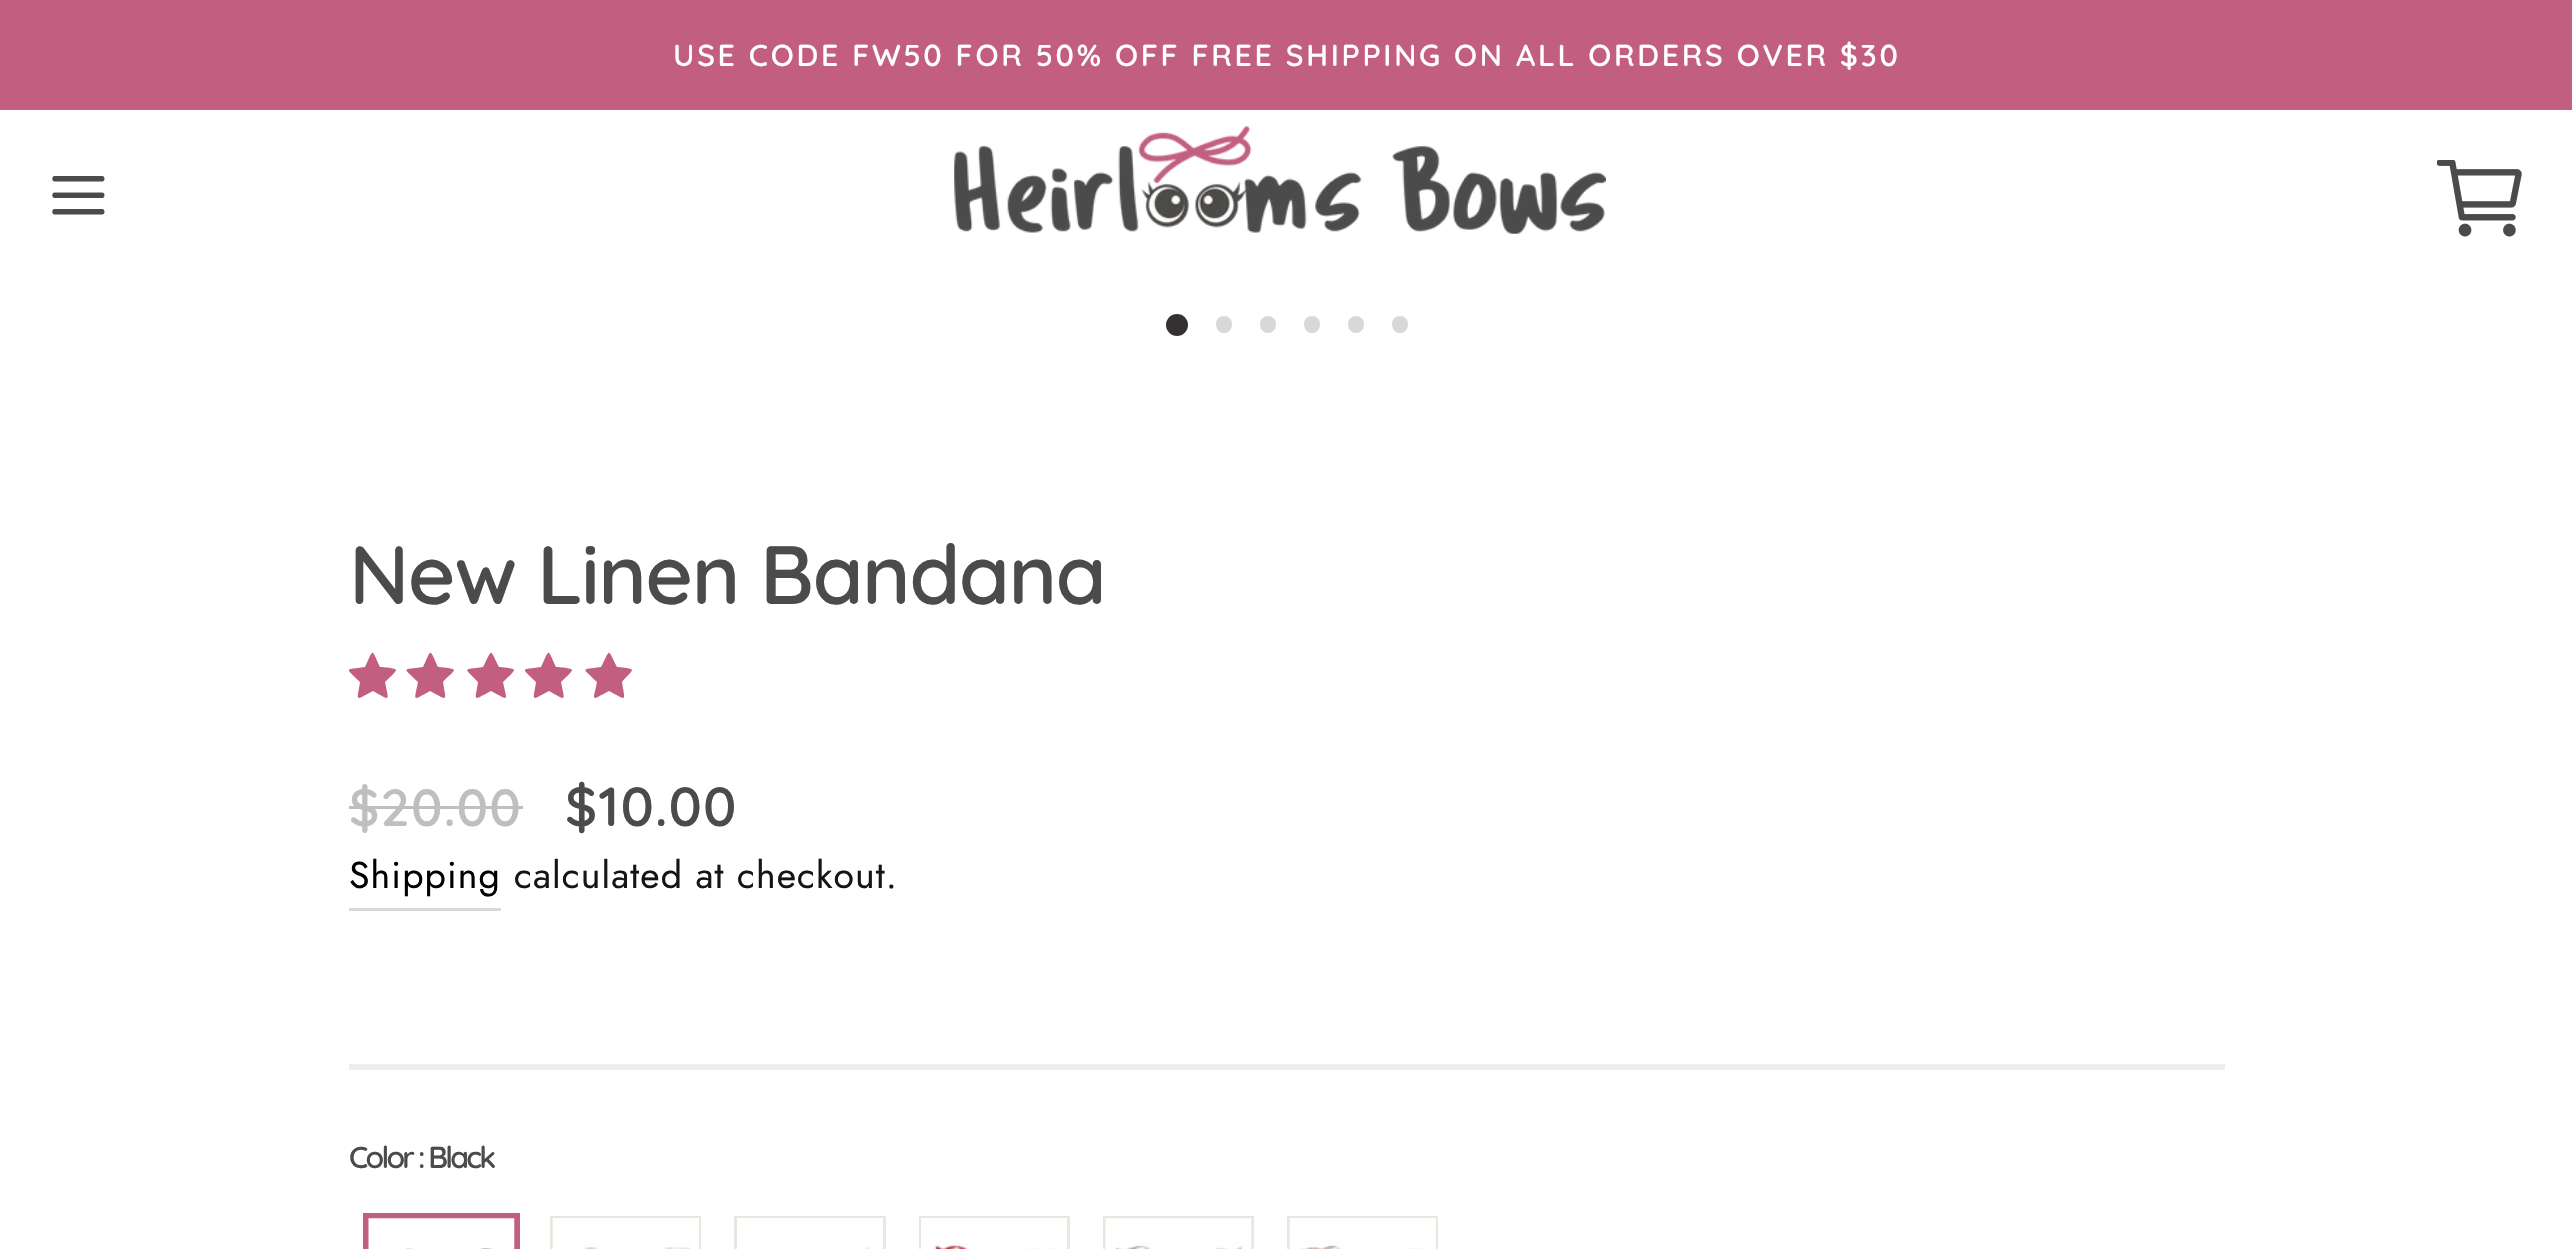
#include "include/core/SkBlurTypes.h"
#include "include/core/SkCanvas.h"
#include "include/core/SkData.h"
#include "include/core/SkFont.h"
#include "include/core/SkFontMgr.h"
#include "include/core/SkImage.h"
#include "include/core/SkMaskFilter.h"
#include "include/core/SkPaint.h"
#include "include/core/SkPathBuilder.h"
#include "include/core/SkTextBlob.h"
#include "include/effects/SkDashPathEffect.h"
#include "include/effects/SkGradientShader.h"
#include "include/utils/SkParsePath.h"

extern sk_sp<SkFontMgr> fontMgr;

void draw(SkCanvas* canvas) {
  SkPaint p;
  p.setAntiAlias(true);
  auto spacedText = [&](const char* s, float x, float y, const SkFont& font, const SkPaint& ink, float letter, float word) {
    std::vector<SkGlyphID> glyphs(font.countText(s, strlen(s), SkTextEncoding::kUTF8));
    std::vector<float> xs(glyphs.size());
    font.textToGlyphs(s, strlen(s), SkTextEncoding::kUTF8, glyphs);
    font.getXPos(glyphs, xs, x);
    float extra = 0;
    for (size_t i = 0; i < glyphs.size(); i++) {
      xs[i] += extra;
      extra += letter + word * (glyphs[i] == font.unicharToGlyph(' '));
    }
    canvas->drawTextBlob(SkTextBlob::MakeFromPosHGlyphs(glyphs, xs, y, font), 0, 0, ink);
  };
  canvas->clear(SK_ColorWHITE);
  p.setColor(SkColorSetRGB(194, 95, 128));
  canvas->drawRect(SkRect::MakeLTRB(0, 0, 2572, 110), p);
  canvas->drawImageRect(SkImages::DeferredFromEncodedData(SkData::MakeFromFileName("images/1.png")), SkRect::MakeLTRB(52, 176, 105, 215), SkSamplingOptions());
  canvas->drawImageRect(SkImages::DeferredFromEncodedData(SkData::MakeFromFileName("images/2.png")), SkRect::MakeLTRB(954, 126, 1606, 234), SkSamplingOptions());
  canvas->drawImageRect(SkImages::DeferredFromEncodedData(SkData::MakeFromFileName("images/3.png")), SkRect::MakeLTRB(2437, 160, 2522, 237), SkSamplingOptions());
  p.setColor(SkColorSetRGB(51, 49, 50));
  canvas->drawCircle(1177, 325, 11, p);
  p.setColor(SkColorSetRGB(216, 216, 216));
  canvas->drawRoundRect(SkRect::MakeLTRB(1216, 316, 1232, 333), 8, 8, p);
  canvas->drawRoundRect(SkRect::MakeLTRB(1260, 316, 1276, 333), 8, 8, p);
  canvas->drawRoundRect(SkRect::MakeLTRB(1304, 316, 1320, 333), 8, 8, p);
  canvas->drawRoundRect(SkRect::MakeLTRB(1348, 316, 1364, 333), 8, 8, p);
  canvas->drawRoundRect(SkRect::MakeLTRB(1392, 316, 1408, 333), 8, 8, p);
  p.setColor(SkColorSetRGB(194, 95, 128));
  canvas->drawPath(SkPathBuilder().moveTo(396, 670).cubicTo(396, 668, 383, 667, 380, 667).cubicTo(371, 648, 374, 648, 365, 667).cubicTo(344, 670, 345, 667, 360, 682).cubicTo(357, 702, 354, 701, 373, 691).cubicTo(391, 701, 389, 702, 385, 682).cubicTo(387, 680, 396, 672, 396, 670).close().detach(), p);
  canvas->drawPath(SkPathBuilder().moveTo(454, 670).cubicTo(454, 668, 440, 667, 438, 667).cubicTo(429, 648, 432, 648, 423, 667).cubicTo(401, 670, 403, 667, 418, 682).cubicTo(414, 702, 412, 701, 430, 691).cubicTo(449, 701, 446, 702, 443, 682).cubicTo(444, 680, 454, 672, 454, 670).close().detach(), p);
  canvas->drawPath(SkPathBuilder().moveTo(514, 670).cubicTo(514, 668, 501, 667, 499, 667).cubicTo(489, 648, 493, 648, 483, 667).cubicTo(462, 670, 464, 667, 478, 682).cubicTo(475, 702, 472, 701, 491, 691).cubicTo(510, 701, 507, 702, 503, 682).cubicTo(505, 680, 514, 672, 514, 670).close().detach(), p);
  canvas->drawPath(SkPathBuilder().moveTo(572, 670).cubicTo(572, 668, 559, 667, 556, 667).cubicTo(547, 648, 550, 648, 541, 667).cubicTo(520, 670, 521, 667, 536, 682).cubicTo(533, 702, 530, 701, 549, 691).cubicTo(567, 701, 565, 702, 561, 682).cubicTo(563, 680, 572, 672, 572, 670).close().detach(), p);
  canvas->drawPath(SkPathBuilder().moveTo(632, 670).cubicTo(632, 668, 619, 667, 617, 667).cubicTo(607, 648, 611, 648, 601, 667).cubicTo(580, 670, 582, 667, 597, 682).cubicTo(593, 702, 590, 701, 609, 691).cubicTo(628, 701, 625, 702, 622, 682).cubicTo(623, 680, 632, 672, 632, 670).close().detach(), p);
  p.setColor(SkColorSetRGB(191, 191, 191));
  canvas->drawRect(SkRect::MakeLTRB(349, 806, 523, 809), p);
  p.setColor(SkColorSetRGB(217, 217, 217));
  canvas->drawRect(SkRect::MakeLTRB(349, 908, 501, 911), p);
  p.setColor(SkColorSetRGB(238, 238, 238));
  canvas->drawRect(SkRect::MakeLTRB(349, 1064, 2225, 1070), p);
  p.setStyle(SkPaint::kStroke_Style);
  p.setStrokeWidth(6);
  p.setColor(SkColorSetRGB(194, 95, 128));
  canvas->drawRect(SkRect::MakeLTRB(366, 1216, 517, 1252), p);
  canvas->drawImageRect(SkImages::DeferredFromEncodedData(SkData::MakeFromFileName("images/4.png")), SkRect::MakeLTRB(368, 1218, 515, 1249), SkSamplingOptions());
  p.setStrokeWidth(3);
  p.setColor(SkColorSetRGB(232, 232, 225));
  canvas->drawRect(SkRect::MakeLTRB(551.5f, 1217.5f, 699.5f, 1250.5f), p);
  p.setStyle(SkPaint::kFill_Style);
  p.setColor(SK_ColorWHITE);
  canvas->drawRect(SkRect::MakeLTRB(553, 1218, 699, 1249), p);
  canvas->drawImageRect(SkImages::DeferredFromEncodedData(SkData::MakeFromFileName("images/5.png")), SkRect::MakeLTRB(552, 1218, 692, 1249), SkSamplingOptions());
  p.setStyle(SkPaint::kStroke_Style);
  p.setColor(SkColorSetRGB(232, 232, 225));
  canvas->drawRect(SkRect::MakeLTRB(735.5f, 1217.5f, 884.5f, 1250.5f), p);
  p.setStyle(SkPaint::kFill_Style);
  p.setColor(SK_ColorWHITE);
  canvas->drawRect(SkRect::MakeLTRB(737, 1218, 883, 1219), p);
  canvas->drawImageRect(SkImages::DeferredFromEncodedData(SkData::MakeFromFileName("images/6.png")), SkRect::MakeLTRB(782, 1247, 870, 1249), SkSamplingOptions());
  p.setStyle(SkPaint::kStroke_Style);
  p.setColor(SkColorSetRGB(232, 232, 225));
  canvas->drawRect(SkRect::MakeLTRB(920.5f, 1217.5f, 1068.5f, 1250.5f), p);
  p.setStyle(SkPaint::kFill_Style);
  p.setColor(SK_ColorWHITE);
  canvas->drawRect(SkRect::MakeLTRB(921, 1218, 1067, 1249), p);
  canvas->drawImageRect(SkImages::DeferredFromEncodedData(SkData::MakeFromFileName("images/7.png")), SkRect::MakeLTRB(933, 1242, 1057, 1249), SkSamplingOptions());
  p.setStyle(SkPaint::kStroke_Style);
  p.setColor(SkColorSetRGB(232, 232, 225));
  canvas->drawRect(SkRect::MakeLTRB(1104.5f, 1217.5f, 1252.5f, 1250.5f), p);
  canvas->drawImageRect(SkImages::DeferredFromEncodedData(SkData::MakeFromFileName("images/8.png")), SkRect::MakeLTRB(1105, 1218, 1252, 1249), SkSamplingOptions());
  canvas->drawRect(SkRect::MakeLTRB(1288.5f, 1217.5f, 1436.5f, 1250.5f), p);
  p.setStyle(SkPaint::kFill_Style);
  p.setColor(SK_ColorWHITE);
  canvas->drawRect(SkRect::MakeLTRB(1290, 1218, 1436, 1249), p);
  canvas->drawImageRect(SkImages::DeferredFromEncodedData(SkData::MakeFromFileName("images/9.png")), SkRect::MakeLTRB(1289, 1218, 1428, 1249), SkSamplingOptions());
  SkFont font1(fontMgr->matchFamilyStyle("Quicksand", SkFontStyle(600, SkFontStyle::kNormal_Width, SkFontStyle::kUpright_Slant)), 30.25f);
  font1.setSubpixel(true);
  spacedText("USE CODE FW50 FOR 50% OFF FREE SHIPPING ON ALL ORDERS OVER $30", 673, 66, font1, p, 2.75f, 0);
  SkFont font2(fontMgr->matchFamilyStyle("Quicksand", SkFontStyle(600, SkFontStyle::kNormal_Width, SkFontStyle::kUpright_Slant)), 82.5f);
  font2.setSubpixel(true);
  p.setColor(SkColorSetRGB(75, 75, 75));
  spacedText("New Linen Bandana", 349, 604, font2, p, -1.6f, 0);
  SkFont font3(fontMgr->matchFamilyStyle("Quicksand", SkFontStyle(600, SkFontStyle::kNormal_Width, SkFontStyle::kUpright_Slant)), 52);
  font3.setSubpixel(true);
  p.setColor(SkColorSetRGB(191, 191, 191));
  spacedText("$20.00", 349, 826, font3, p, 1.1f, 0);
  SkFont font4(fontMgr->matchFamilyStyle("Quicksand", SkFontStyle(600, SkFontStyle::kNormal_Width, SkFontStyle::kUpright_Slant)), 55);
  font4.setSubpixel(true);
  p.setColor(SkColorSetRGB(75, 75, 75));
  spacedText("$10.00", 565, 826, font4, p, 1.1f, 0);
  SkFont font5(fontMgr->matchFamilyStyle("Jost", SkFontStyle::Normal()), 37.4f);
  font5.setSubpixel(true);
  p.setColor(SK_ColorBLACK);
  spacedText("Shipping", 349, 888, font5, p, 1.1f, 0);
  p.setColor(SkColorSetRGB(20, 21, 21));
  spacedText("calculated at checkout.", 514, 888, font5, p, 1.1f, 0);
  p.setColor(SkColorSetRGB(75, 75, 75));
  spacedText("Color : Black", 349, 1168, font1, p, -2.75f, 0);
}
